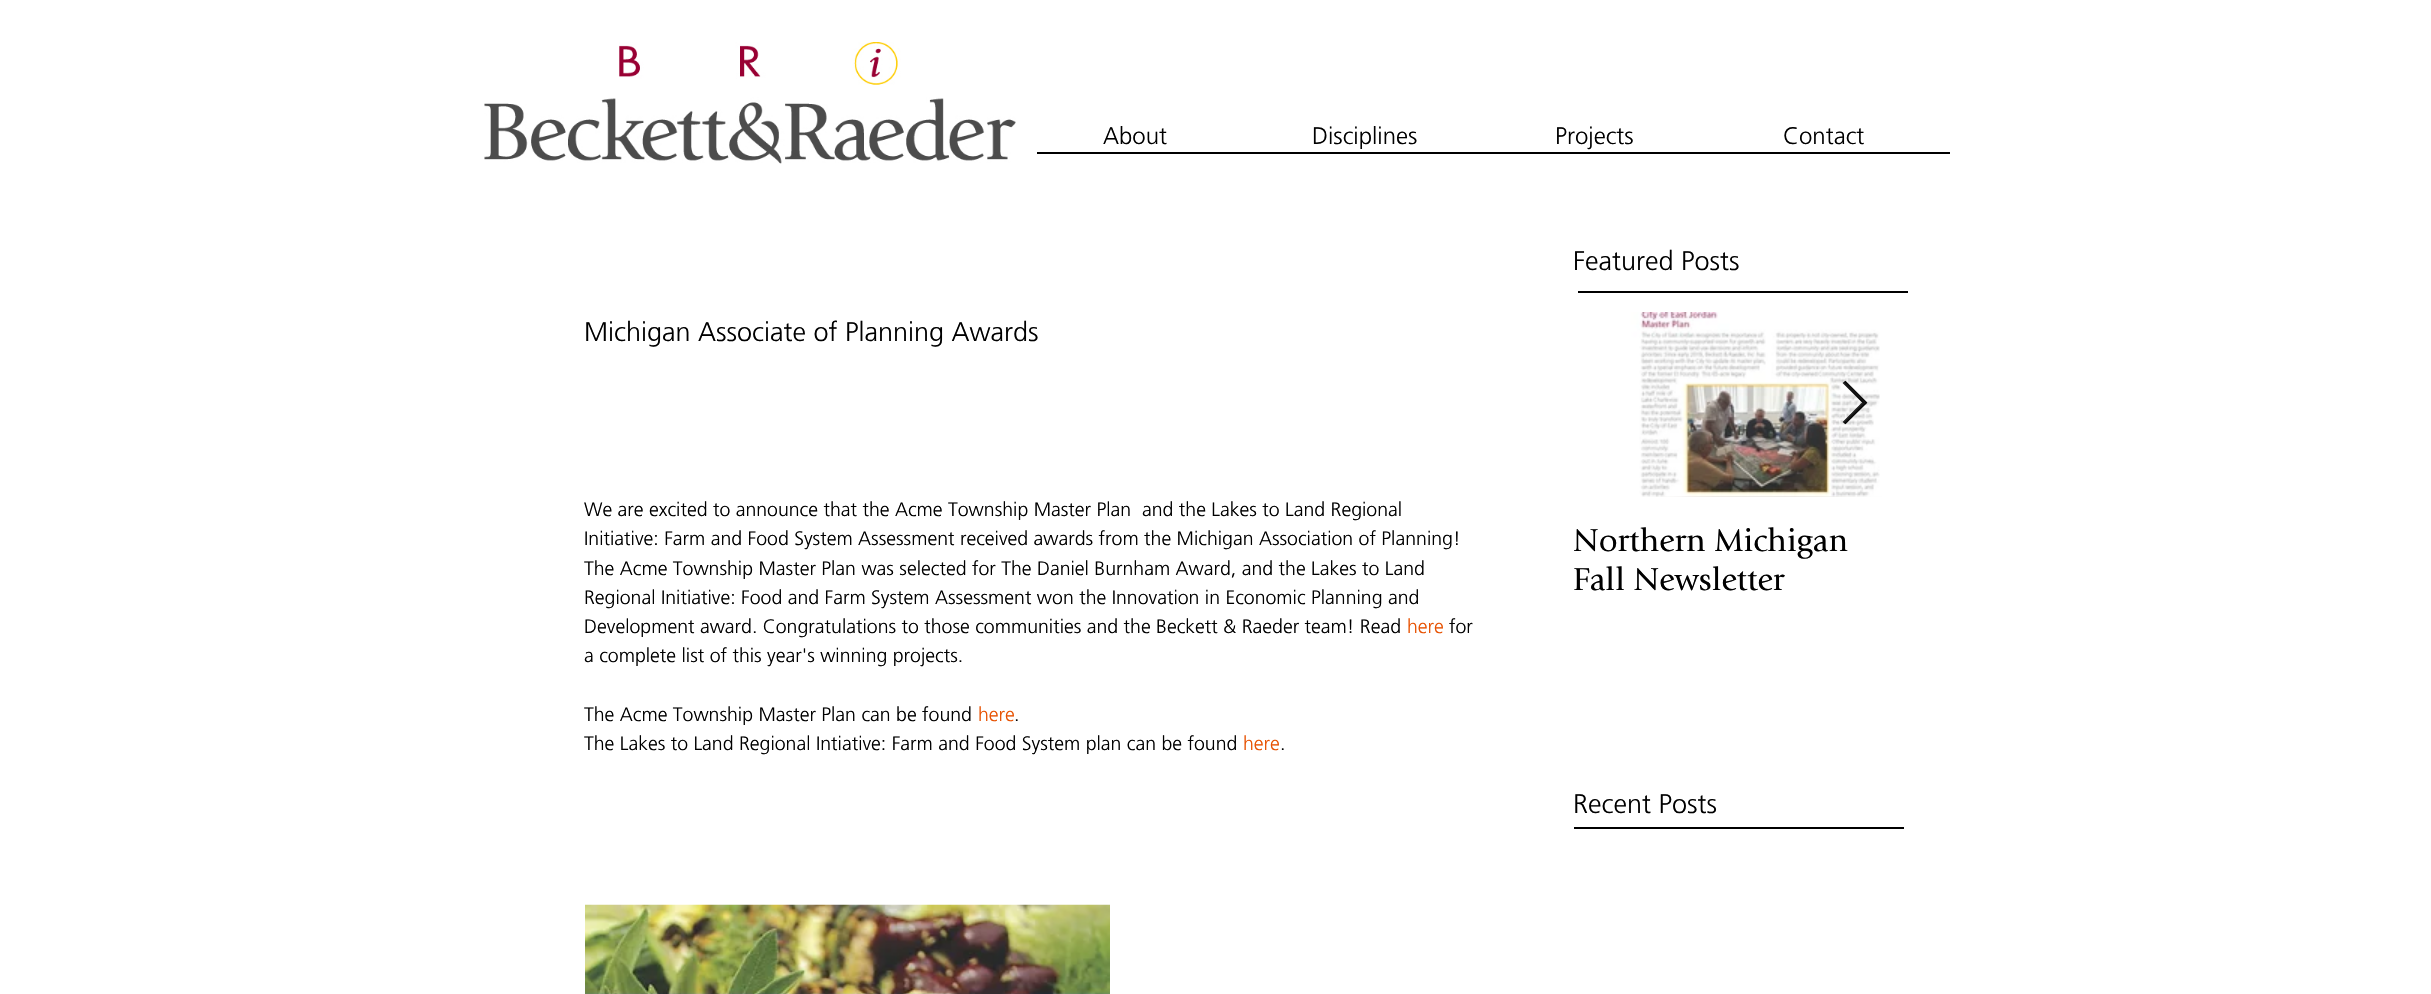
#include "include/core/SkBlurTypes.h"
#include "include/core/SkCanvas.h"
#include "include/core/SkData.h"
#include "include/core/SkFont.h"
#include "include/core/SkFontMgr.h"
#include "include/core/SkImage.h"
#include "include/core/SkMaskFilter.h"
#include "include/core/SkPaint.h"
#include "include/core/SkPathBuilder.h"
#include "include/core/SkTextBlob.h"
#include "include/effects/SkDashPathEffect.h"
#include "include/effects/SkGradientShader.h"
#include "include/utils/SkParsePath.h"

extern sk_sp<SkFontMgr> fontMgr;

void draw(SkCanvas* canvas) {
  SkPaint p;
  p.setAntiAlias(true);
  canvas->clear(SK_ColorWHITE);
  canvas->drawImageRect(SkImages::DeferredFromEncodedData(SkData::MakeFromFileName("images/1.png")), SkRect::MakeLTRB(484, 42, 1016, 164), SkSamplingOptions());
  p.setColor(SK_ColorBLACK);
  canvas->drawRect(SkRect::MakeLTRB(1037, 152, 1950, 154), p);
  canvas->drawRect(SkRect::MakeLTRB(1578, 291, 1908, 293), p);
  canvas->drawImageRect(SkImages::DeferredFromEncodedData(SkData::MakeFromFileName("images/2.png")), SkRect::MakeLTRB(585, 904, 1110, 994), SkSamplingOptions());
  canvas->drawImageRect(SkImages::DeferredFromEncodedData(SkData::MakeFromFileName("images/4.png")), SkRect::MakeLTRB(1625, 496, 1885, 497), SkSamplingOptions());
  canvas->drawImageRect(SkImages::DeferredFromEncodedData(SkData::MakeFromFileName("images/3.png")), SkRect::MakeLTRB(1625, 312, 1885, 497), SkSamplingOptions());
  p.setColor(SkColorSetARGB(230, 0, 0, 0));
  canvas->drawPath(SkPathBuilder().moveTo(1844, 383).lineTo(1845, 381).lineTo(1867, 403).lineTo(1845, 424).lineTo(1844, 422).lineTo(1863, 403).close().detach(), p);
  p.setStyle(SkPaint::kStroke_Style);
  p.setStrokeWidth(1.2f);
  canvas->drawPath(SkPathBuilder().moveTo(1843.5f, 383).lineTo(1845.5f, 381.5f).lineTo(1866.5f, 402.5f).lineTo(1845.5f, 423.5f).lineTo(1843.5f, 422).lineTo(1863, 402.5f).close().detach(), p);
  p.setStyle(SkPaint::kFill_Style);
  p.setColor(SK_ColorBLACK);
  canvas->drawRect(SkRect::MakeLTRB(1574, 827, 1904, 829), p);
  SkFont font1(fontMgr->matchFamilyStyle("Frutiger", SkFontStyle(300, SkFontStyle::kNormal_Width, SkFontStyle::kUpright_Slant)), 24);
  font1.setSubpixel(true);
  canvas->drawString("About", 1103, 144, font1, p);
  canvas->drawString("Disciplines", 1312, 144, font1, p);
  canvas->drawString("Projects", 1555, 144, font1, p);
  canvas->drawString("Contact", 1783, 144, font1, p);
  SkFont font2(fontMgr->matchFamilyStyle("Frutiger", SkFontStyle(300, SkFontStyle::kNormal_Width, SkFontStyle::kUpright_Slant)), 27);
  font2.setSubpixel(true);
  canvas->drawString("Featured Posts", 1573, 270, font2, p);
  canvas->drawString("Michigan Associate of Planning Awards", 584, 341, font2, p);
  SkFont font3(fontMgr->matchFamilyStyle("Frutiger", SkFontStyle(300, SkFontStyle::kNormal_Width, SkFontStyle::kUpright_Slant)), 19.5f);
  font3.setSubpixel(true);
  canvas->drawString("We are excited to announce that the Acme Township Master Plan  and the Lakes to Land Regional", 584, 516, font3, p);
  canvas->drawString("Initiative: Farm and Food System Assessment received awards from the Michigan Association of Planning!", 584, 545, font3, p);
  canvas->drawString("The Acme Township Master Plan was selected for The Daniel Burnham Award, and the Lakes to Land", 584, 575, font3, p);
  canvas->drawString("Regional Initiative: Food and Farm System Assessment won the Innovation in Economic Planning and", 584, 604, font3, p);
  canvas->drawString("Development award. Congratulations to those communities and the Beckett & Raeder team! Read", 584, 633, font3, p);
  p.setColor(SkColorSetRGB(231, 81, 1));
  canvas->drawString("here", 1407, 633, font3, p);
  p.setColor(SK_ColorBLACK);
  canvas->drawString("for", 1449, 633, font3, p);
  canvas->drawString("a complete list of this year's winning projects.", 584, 662, font3, p);
  canvas->drawString("The Acme Township Master Plan can be found", 584, 721, font3, p);
  p.setColor(SkColorSetRGB(231, 81, 1));
  canvas->drawString("here", 978, 721, font3, p);
  p.setColor(SK_ColorBLACK);
  canvas->drawString(".", 1014, 721, font3, p);
  canvas->drawString("The Lakes to Land Regional Intiative: Farm and Food System plan can be found", 584, 750, font3, p);
  p.setColor(SkColorSetRGB(231, 81, 1));
  canvas->drawString("here", 1243, 750, font3, p);
  p.setColor(SK_ColorBLACK);
  canvas->drawString(".", 1280, 750, font3, p);
  SkFont font4(fontMgr->matchFamilyStyle("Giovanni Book", SkFontStyle::Normal()), 33);
  font4.setSubpixel(true);
  canvas->drawString("Northern Michigan", 1573, 551, font4, p);
  canvas->drawString("Fall Newsletter", 1573, 590, font4, p);
  canvas->drawString("Recent Posts", 1573, 813, font2, p);
}
